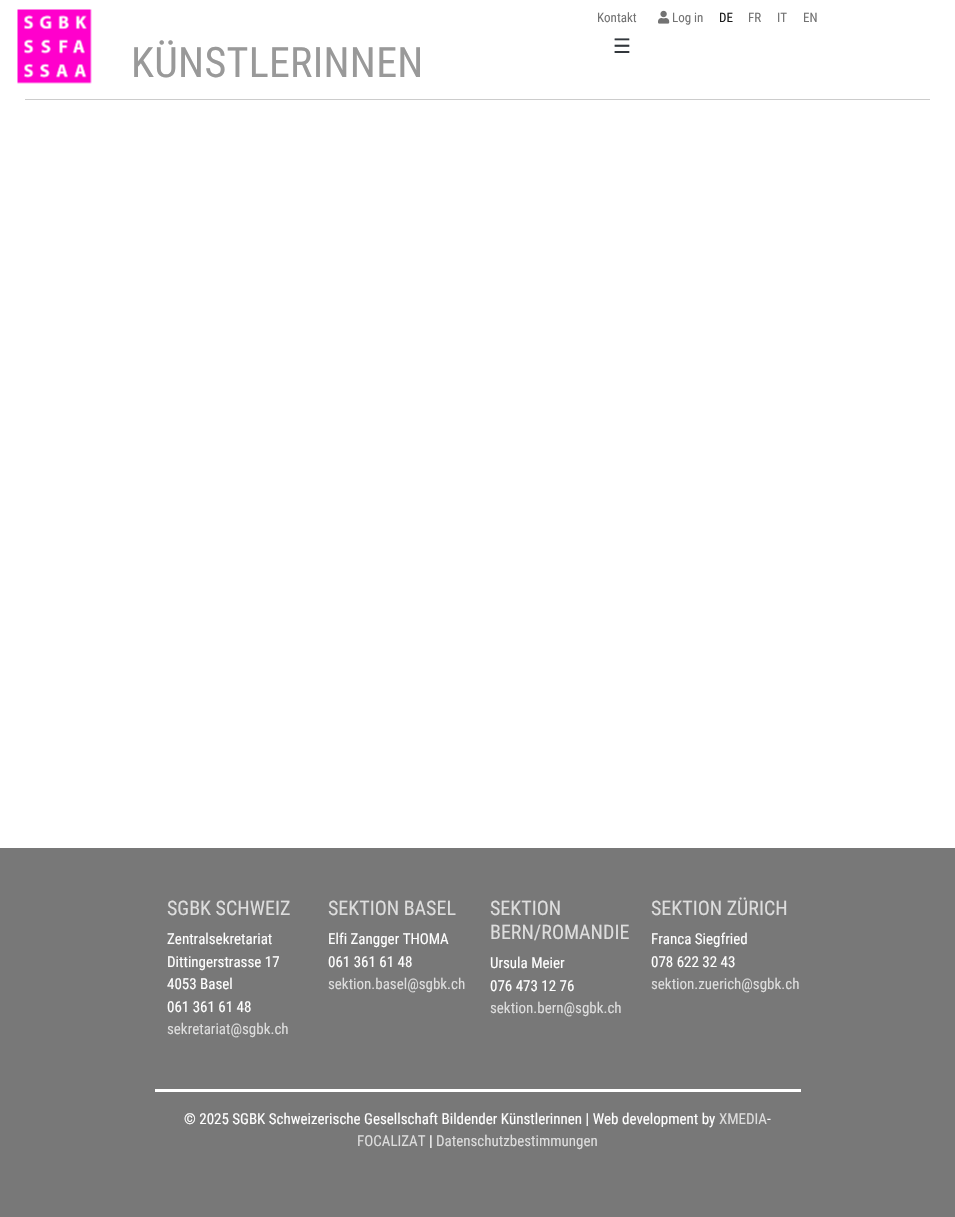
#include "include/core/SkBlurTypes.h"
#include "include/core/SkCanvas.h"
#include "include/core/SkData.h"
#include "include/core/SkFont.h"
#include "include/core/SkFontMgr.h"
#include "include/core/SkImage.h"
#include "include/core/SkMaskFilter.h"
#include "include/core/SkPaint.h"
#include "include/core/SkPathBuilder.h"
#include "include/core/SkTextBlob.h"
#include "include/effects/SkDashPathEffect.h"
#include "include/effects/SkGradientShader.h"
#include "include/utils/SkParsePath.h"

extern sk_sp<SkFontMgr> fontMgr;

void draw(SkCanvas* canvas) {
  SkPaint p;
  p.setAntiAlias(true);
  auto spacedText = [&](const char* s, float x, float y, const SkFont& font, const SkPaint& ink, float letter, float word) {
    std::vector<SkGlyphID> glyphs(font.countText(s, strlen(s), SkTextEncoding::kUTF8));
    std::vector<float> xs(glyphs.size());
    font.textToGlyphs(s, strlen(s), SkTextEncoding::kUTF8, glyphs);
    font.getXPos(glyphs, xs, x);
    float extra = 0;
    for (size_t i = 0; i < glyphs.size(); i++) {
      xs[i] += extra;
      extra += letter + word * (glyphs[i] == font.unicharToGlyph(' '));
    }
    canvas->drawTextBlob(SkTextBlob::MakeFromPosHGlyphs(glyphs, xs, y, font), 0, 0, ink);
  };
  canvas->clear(SK_ColorWHITE);
  canvas->drawImageRect(SkImages::DeferredFromEncodedData(SkData::MakeFromFileName("images/1.png")), SkRect::MakeLTRB(658, 10, 670, 24), SkSamplingOptions());
  canvas->drawImageRect(SkImages::DeferredFromEncodedData(SkData::MakeFromFileName("images/2.png")), SkRect::MakeLTRB(17, 9, 92, 84), SkSamplingOptions());
  p.setColor(SkColorSetRGB(204, 204, 204));
  canvas->drawRect(SkRect::MakeLTRB(25, 99, 930, 100), p);
  p.setColor(SkColorSetRGB(120, 120, 120));
  canvas->drawRect(SkRect::MakeLTRB(0, 848, 955, 1217), p);
  p.setColor(SK_ColorWHITE);
  canvas->drawRect(SkRect::MakeLTRB(155, 1089, 801, 1092), p);
  SkFont font1(fontMgr->matchFamilyStyle("Roboto Condensed", SkFontStyle::Normal()), 13);
  font1.setSubpixel(true);
  p.setColor(SkColorSetRGB(115, 115, 115));
  canvas->drawString("Kontakt", 597, 22, font1, p);
  canvas->drawString("Log in", 672, 22, font1, p);
  p.setColor(SkColorSetRGB(26, 26, 26));
  canvas->drawString("DE", 719, 22, font1, p);
  p.setColor(SkColorSetRGB(115, 115, 115));
  canvas->drawString("FR", 748, 22, font1, p);
  canvas->drawString("IT", 777, 22, font1, p);
  canvas->drawString("EN", 803, 22, font1, p);
  SkFont font2(fontMgr->matchFamilyStyle("Roboto Condensed", SkFontStyle::Normal()), 42);
  font2.setSubpixel(true);
  p.setColor(SkColorSetRGB(153, 153, 153));
  spacedText("KÜNSTLERINNEN", 131, 77, font2, p, 0.3f, 0);
  SkFont font3(fontMgr->matchFamilyStyle("DejaVu Sans", SkFontStyle::Normal()), 20);
  font3.setSubpixel(true);
  p.setColor(SkColorSetRGB(50, 55, 60));
  canvas->drawString("☰", 613, 53, font3, p);
  SkFont font4(fontMgr->matchFamilyStyle("Roboto Condensed", SkFontStyle::Normal()), 20);
  font4.setSubpixel(true);
  p.setColor(SkColorSetRGB(221, 221, 221));
  canvas->drawString("SGBK SCHWEIZ", 167, 915, font4, p);
  SkFont font5(fontMgr->matchFamilyStyle("Roboto Condensed", SkFontStyle::Normal()), 15);
  font5.setSubpixel(true);
  p.setColor(SK_ColorWHITE);
  canvas->drawString("Zentralsekretariat", 167, 944, font5, p);
  canvas->drawString("Dittingerstrasse 17", 167, 967, font5, p);
  canvas->drawString("4053 Basel", 167, 989, font5, p);
  canvas->drawString("061 361 61 48", 167, 1012, font5, p);
  p.setColor(SkColorSetRGB(221, 221, 221));
  canvas->drawString("sekretariat@sgbk.ch", 167, 1034, font5, p);
  canvas->drawString("SEKTION BASEL", 328, 915, font4, p);
  p.setColor(SK_ColorWHITE);
  canvas->drawString("Elfi Zangger THOMA", 328, 944, font5, p);
  canvas->drawString("061 361 61 48", 328, 967, font5, p);
  p.setColor(SkColorSetRGB(221, 221, 221));
  canvas->drawString("sektion.basel@sgbk.ch", 328, 989, font5, p);
  canvas->drawString("SEKTION", 490, 915, font4, p);
  canvas->drawString("BERN/ROMANDIE", 490, 939, font4, p);
  p.setColor(SK_ColorWHITE);
  canvas->drawString("Ursula Meier", 490, 968, font5, p);
  canvas->drawString("076 473 12 76", 490, 991, font5, p);
  p.setColor(SkColorSetRGB(221, 221, 221));
  canvas->drawString("sektion.bern@sgbk.ch", 490, 1013, font5, p);
  canvas->drawString("SEKTION ZÜRICH", 651, 915, font4, p);
  p.setColor(SK_ColorWHITE);
  canvas->drawString("Franca Siegfried", 651, 944, font5, p);
  canvas->drawString("078 622 32 43", 651, 967, font5, p);
  p.setColor(SkColorSetRGB(221, 221, 221));
  canvas->drawString("sektion.zuerich@sgbk.ch", 651, 989, font5, p);
  p.setColor(SK_ColorWHITE);
  canvas->drawString("© 2025 SGBK Schweizerische Gesellschaft Bildender Künstlerinnen | Web development by", 184, 1124, font5, p);
  p.setColor(SkColorSetRGB(221, 221, 221));
  canvas->drawString("XMEDIA", 719, 1124, font5, p);
  p.setColor(SK_ColorWHITE);
  canvas->drawString("-", 767, 1124, font5, p);
  p.setColor(SkColorSetRGB(221, 221, 221));
  canvas->drawString("FOCALIZAT", 357, 1146, font5, p);
  p.setColor(SK_ColorWHITE);
  canvas->drawString("|", 429, 1146, font5, p);
  p.setColor(SkColorSetRGB(221, 221, 221));
  canvas->drawString("Datenschutzbestimmungen", 436, 1146, font5, p);
}
